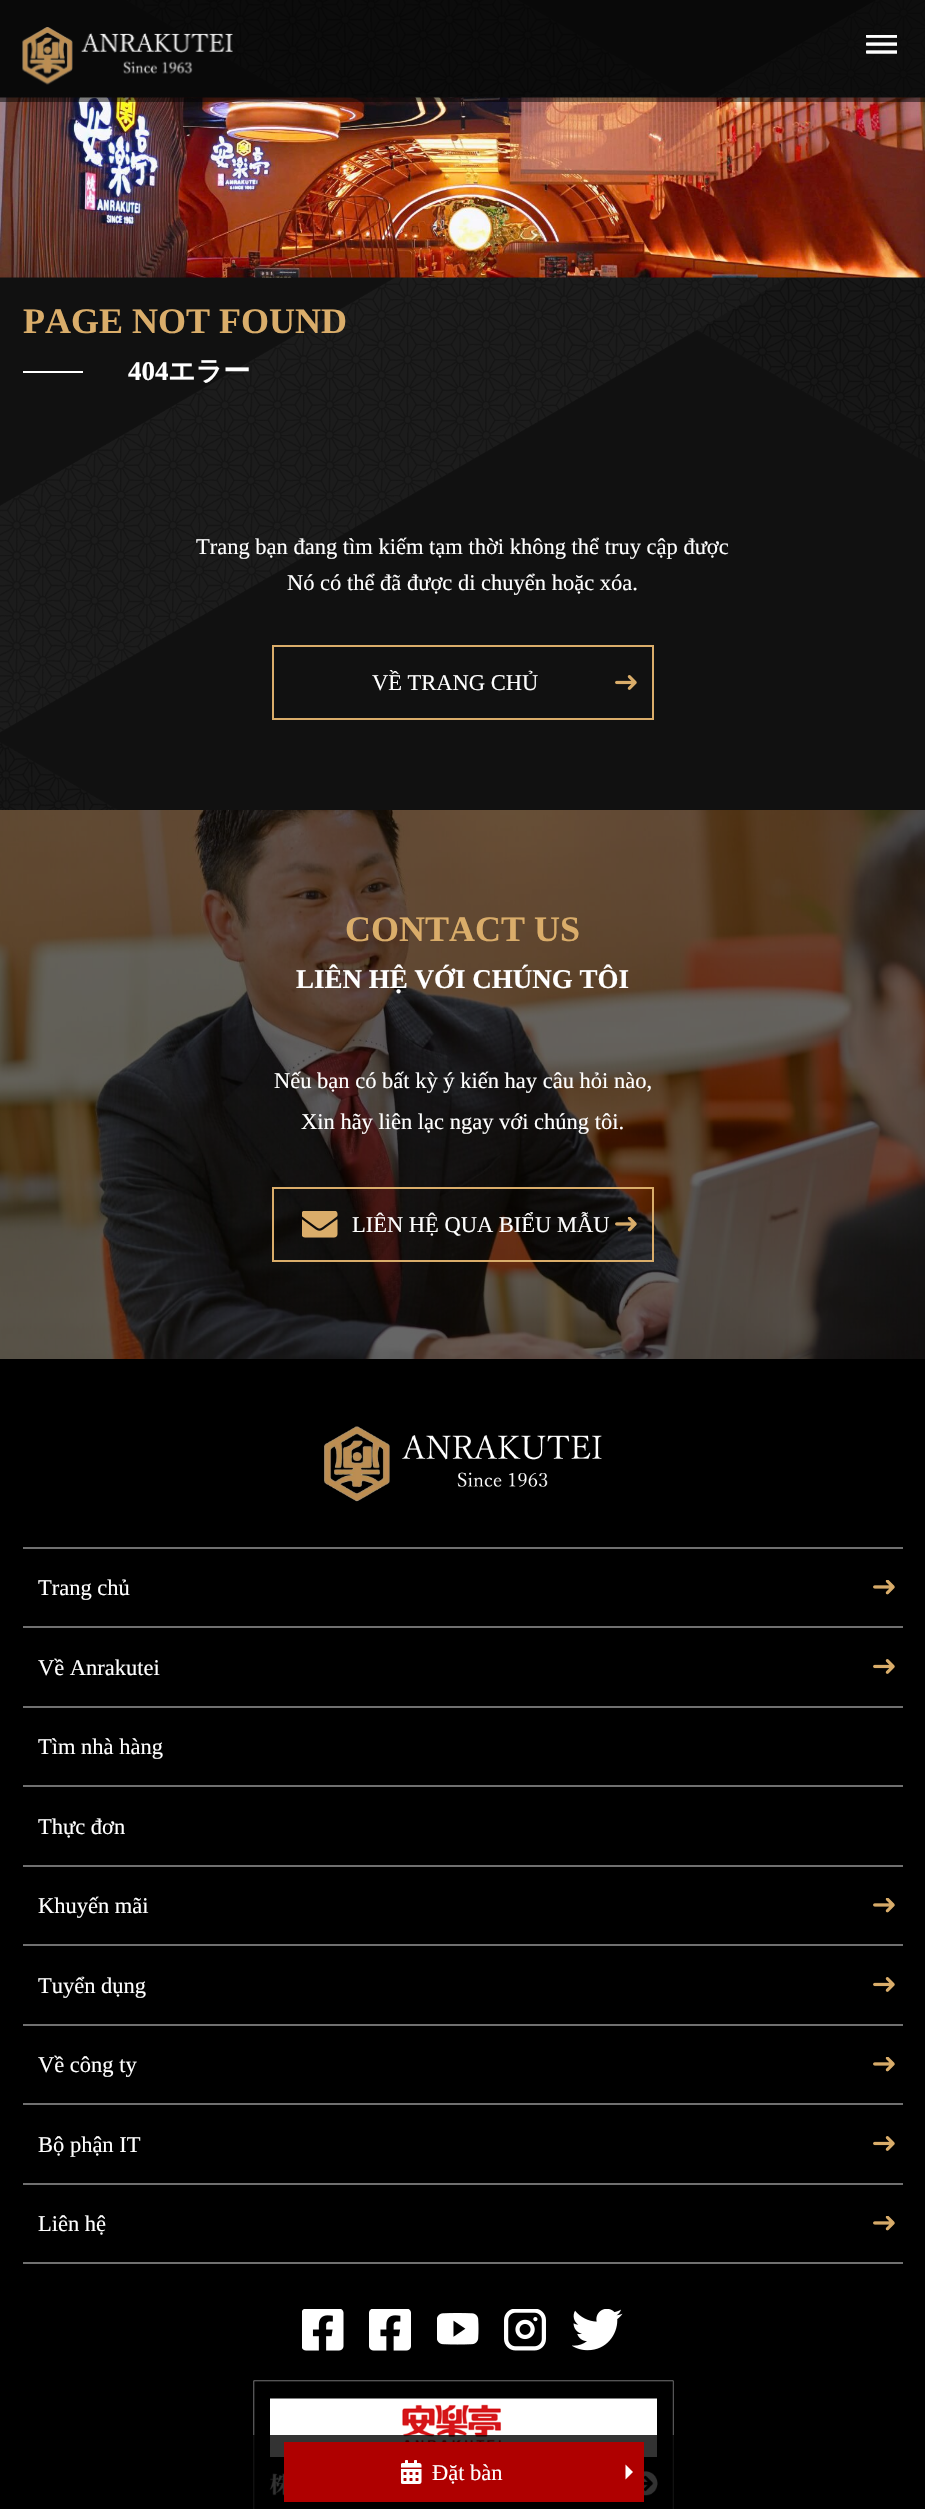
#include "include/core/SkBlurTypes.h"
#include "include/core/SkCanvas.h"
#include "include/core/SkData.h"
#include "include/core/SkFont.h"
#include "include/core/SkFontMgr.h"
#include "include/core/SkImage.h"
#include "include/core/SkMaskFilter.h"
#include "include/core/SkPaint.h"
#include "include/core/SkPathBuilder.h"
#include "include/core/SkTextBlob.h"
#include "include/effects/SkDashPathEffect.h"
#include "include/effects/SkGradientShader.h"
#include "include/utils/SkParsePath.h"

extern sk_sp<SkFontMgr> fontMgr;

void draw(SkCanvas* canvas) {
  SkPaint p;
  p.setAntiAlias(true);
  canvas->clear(SkColorSetRGB(17, 17, 17));
  canvas->drawImageRect(SkImages::DeferredFromEncodedData(SkData::MakeFromFileName("images/1.png")), SkRect::MakeLTRB(0, 0, 925, 810), SkSamplingOptions());
  canvas->drawImageRect(SkImages::DeferredFromEncodedData(SkData::MakeFromFileName("images/4.png")), SkRect::MakeLTRB(0, 97, 925, 278), SkSamplingOptions());
  p.setColor(SkColorSetARGB(128, 0, 0, 0));
  canvas->drawRect(SkRect::MakeLTRB(0, 0, 925, 102), p);
  canvas->drawImageRect(SkImages::DeferredFromEncodedData(SkData::MakeFromFileName("images/2.png")), SkRect::MakeLTRB(22, 27, 233, 85), SkSamplingOptions());
  canvas->drawImageRect(SkImages::DeferredFromEncodedData(SkData::MakeFromFileName("images/3.png")), SkRect::MakeLTRB(866, 35, 897, 54), SkSamplingOptions());
  p.setColor(SK_ColorWHITE);
  canvas->drawRect(SkRect::MakeLTRB(23, 371, 83, 373), p);
  p.setStyle(SkPaint::kStroke_Style);
  p.setStrokeWidth(2);
  p.setColor(SkColorSetRGB(218, 173, 106));
  canvas->drawRect(SkRect::MakeLTRB(273, 646, 653, 719), p);
  canvas->drawImageRect(SkImages::DeferredFromEncodedData(SkData::MakeFromFileName("images/5.png")), SkRect::MakeLTRB(615, 675, 637, 690), SkSamplingOptions());
  p.setStyle(SkPaint::kFill_Style);
  p.setColor(SK_ColorBLACK);
  canvas->drawRect(SkRect::MakeLTRB(0, 1359, 925, 2509), p);
  canvas->drawImageRect(SkImages::DeferredFromEncodedData(SkData::MakeFromFileName("images/6.png")), SkRect::MakeLTRB(0, 810, 925, 1359), SkSamplingOptions());
  p.setStyle(SkPaint::kStroke_Style);
  p.setColor(SkColorSetRGB(218, 173, 106));
  canvas->drawRect(SkRect::MakeLTRB(273, 1188, 653, 1261), p);
  canvas->drawImageRect(SkImages::DeferredFromEncodedData(SkData::MakeFromFileName("images/7.png")), SkRect::MakeLTRB(302, 1211, 338, 1238), SkSamplingOptions());
  canvas->drawImageRect(SkImages::DeferredFromEncodedData(SkData::MakeFromFileName("images/8.png")), SkRect::MakeLTRB(615, 1217, 637, 1232), SkSamplingOptions());
  canvas->drawImageRect(SkImages::DeferredFromEncodedData(SkData::MakeFromFileName("images/9.png")), SkRect::MakeLTRB(324, 1426, 602, 1502), SkSamplingOptions());
  p.setStyle(SkPaint::kFill_Style);
  p.setColor(SkColorSetRGB(112, 112, 112));
  canvas->drawRect(SkRect::MakeLTRB(23, 1547, 903, 1549), p);
  canvas->drawRect(SkRect::MakeLTRB(23, 1626, 903, 1628), p);
  canvas->drawImageRect(SkImages::DeferredFromEncodedData(SkData::MakeFromFileName("images/10.png")), SkRect::MakeLTRB(873, 1580, 895, 1595), SkSamplingOptions());
  canvas->drawRect(SkRect::MakeLTRB(23, 1706, 903, 1708), p);
  canvas->drawImageRect(SkImages::DeferredFromEncodedData(SkData::MakeFromFileName("images/11.png")), SkRect::MakeLTRB(873, 1659, 895, 1674), SkSamplingOptions());
  canvas->drawRect(SkRect::MakeLTRB(23, 1785, 903, 1787), p);
  canvas->drawRect(SkRect::MakeLTRB(23, 1865, 903, 1867), p);
  canvas->drawRect(SkRect::MakeLTRB(23, 1944, 903, 1946), p);
  canvas->drawImageRect(SkImages::DeferredFromEncodedData(SkData::MakeFromFileName("images/10.png")), SkRect::MakeLTRB(873, 1898, 895, 1913), SkSamplingOptions());
  canvas->drawRect(SkRect::MakeLTRB(23, 2024, 903, 2026), p);
  canvas->drawImageRect(SkImages::DeferredFromEncodedData(SkData::MakeFromFileName("images/11.png")), SkRect::MakeLTRB(873, 1977, 895, 1992), SkSamplingOptions());
  canvas->drawRect(SkRect::MakeLTRB(23, 2103, 903, 2105), p);
  canvas->drawImageRect(SkImages::DeferredFromEncodedData(SkData::MakeFromFileName("images/10.png")), SkRect::MakeLTRB(873, 2057, 895, 2072), SkSamplingOptions());
  canvas->drawRect(SkRect::MakeLTRB(23, 2183, 903, 2185), p);
  canvas->drawImageRect(SkImages::DeferredFromEncodedData(SkData::MakeFromFileName("images/11.png")), SkRect::MakeLTRB(873, 2136, 895, 2151), SkSamplingOptions());
  canvas->drawRect(SkRect::MakeLTRB(23, 2262, 903, 2264), p);
  canvas->drawImageRect(SkImages::DeferredFromEncodedData(SkData::MakeFromFileName("images/10.png")), SkRect::MakeLTRB(873, 2216, 895, 2231), SkSamplingOptions());
  canvas->drawImageRect(SkImages::DeferredFromEncodedData(SkData::MakeFromFileName("images/12.png")), SkRect::MakeLTRB(302, 2309, 344, 2351), SkSamplingOptions());
  canvas->drawImageRect(SkImages::DeferredFromEncodedData(SkData::MakeFromFileName("images/13.png")), SkRect::MakeLTRB(369, 2309, 411, 2351), SkSamplingOptions());
  canvas->drawImageRect(SkImages::DeferredFromEncodedData(SkData::MakeFromFileName("images/14.png")), SkRect::MakeLTRB(437, 2313, 479, 2345), SkSamplingOptions());
  canvas->drawImageRect(SkImages::DeferredFromEncodedData(SkData::MakeFromFileName("images/15.png")), SkRect::MakeLTRB(504, 2309, 546, 2351), SkSamplingOptions());
  canvas->drawImageRect(SkImages::DeferredFromEncodedData(SkData::MakeFromFileName("images/16.png")), SkRect::MakeLTRB(572, 2309, 623, 2351), SkSamplingOptions());
  canvas->drawImageRect(SkImages::DeferredFromEncodedData(SkData::MakeFromFileName("images/17.png")), SkRect::MakeLTRB(253, 2380, 674, 2509), SkSamplingOptions());
  p.setColor(SkColorSetARGB(204, 0, 0, 0));
  canvas->drawRect(SkRect::MakeLTRB(253, 2435, 674, 2509), p);
  p.setColor(SkColorSetRGB(175, 0, 0));
  canvas->drawRect(SkRect::MakeLTRB(284, 2442, 644, 2502), p);
  canvas->drawImageRect(SkImages::DeferredFromEncodedData(SkData::MakeFromFileName("images/18.png")), SkRect::MakeLTRB(401, 2460, 422, 2484), SkSamplingOptions());
  p.setColor(SK_ColorWHITE);
  canvas->drawPath(SkPathBuilder().moveTo(625.5f, 2479.5f).lineTo(625.5f, 2464.5f).lineTo(633, 2472).close().detach(), p);
  SkFont font1(fontMgr->matchFamilyStyle("Liberation Serif", SkFontStyle::Bold()), 36);
  font1.setSubpixel(true);
  p.setColor(SkColorSetRGB(218, 173, 106));
  canvas->drawString("PAGE NOT FOUND", 23, 333, font1, p);
  SkFont font2(fontMgr->matchFamilyStyle("Liberation Serif", SkFontStyle::Bold()), 27);
  font2.setSubpixel(true);
  p.setColor(SK_ColorWHITE);
  canvas->drawString("404", 128, 380, font2, p);
  SkFont font3(fontMgr->matchFamilyStyle("WenQuanYi Zen Hei", SkFontStyle::Bold()), 27);
  font3.setSubpixel(true);
  canvas->drawString("エラー", 168, 380, font3, p);
  SkFont font4(fontMgr->matchFamilyStyle("Liberation Serif", SkFontStyle::Normal()), 22.5f);
  font4.setSubpixel(true);
  canvas->drawString("Trang bạn đang tìm kiếm tạm thời không thể truy cập được", 196, 554, font4, p);
  canvas->drawString("Nó có thể đã được di chuyển hoặc xóa.", 287, 590, font4, p);
  canvas->drawString("VỀ TRANG CHỦ", 372, 690, font4, p);
  p.setColor(SkColorSetRGB(218, 173, 106));
  canvas->drawString("CONTACT US", 345, 941, font1, p);
  p.setColor(SK_ColorWHITE);
  canvas->drawString("LIÊN HỆ VỚI CHÚNG TÔI", 296, 988, font2, p);
  canvas->drawString("Nếu bạn có bất kỳ ý kiến hay câu hỏi nào,", 274, 1088, font4, p);
  canvas->drawString("Xin hãy liên lạc ngay với chúng tôi.", 301, 1129, font4, p);
  canvas->drawString("LIÊN HỆ QUA BIỂU MẪU", 352, 1232, font4, p);
  canvas->drawString("Trang chủ", 38, 1595, font4, p);
  canvas->drawString("Về Anrakutei", 38, 1675, font4, p);
  canvas->drawString("Tìm nhà hàng", 38, 1754, font4, p);
  canvas->drawString("Thực đơn", 38, 1834, font4, p);
  canvas->drawString("Khuyến mãi", 38, 1913, font4, p);
  canvas->drawString("Tuyển dụng", 38, 1993, font4, p);
  canvas->drawString("Về công ty", 38, 2072, font4, p);
  canvas->drawString("Bộ phận IT", 38, 2152, font4, p);
  canvas->drawString("Liên hệ", 38, 2231, font4, p);
  canvas->drawString("Đặt bàn", 432, 2480, font4, p);
}
